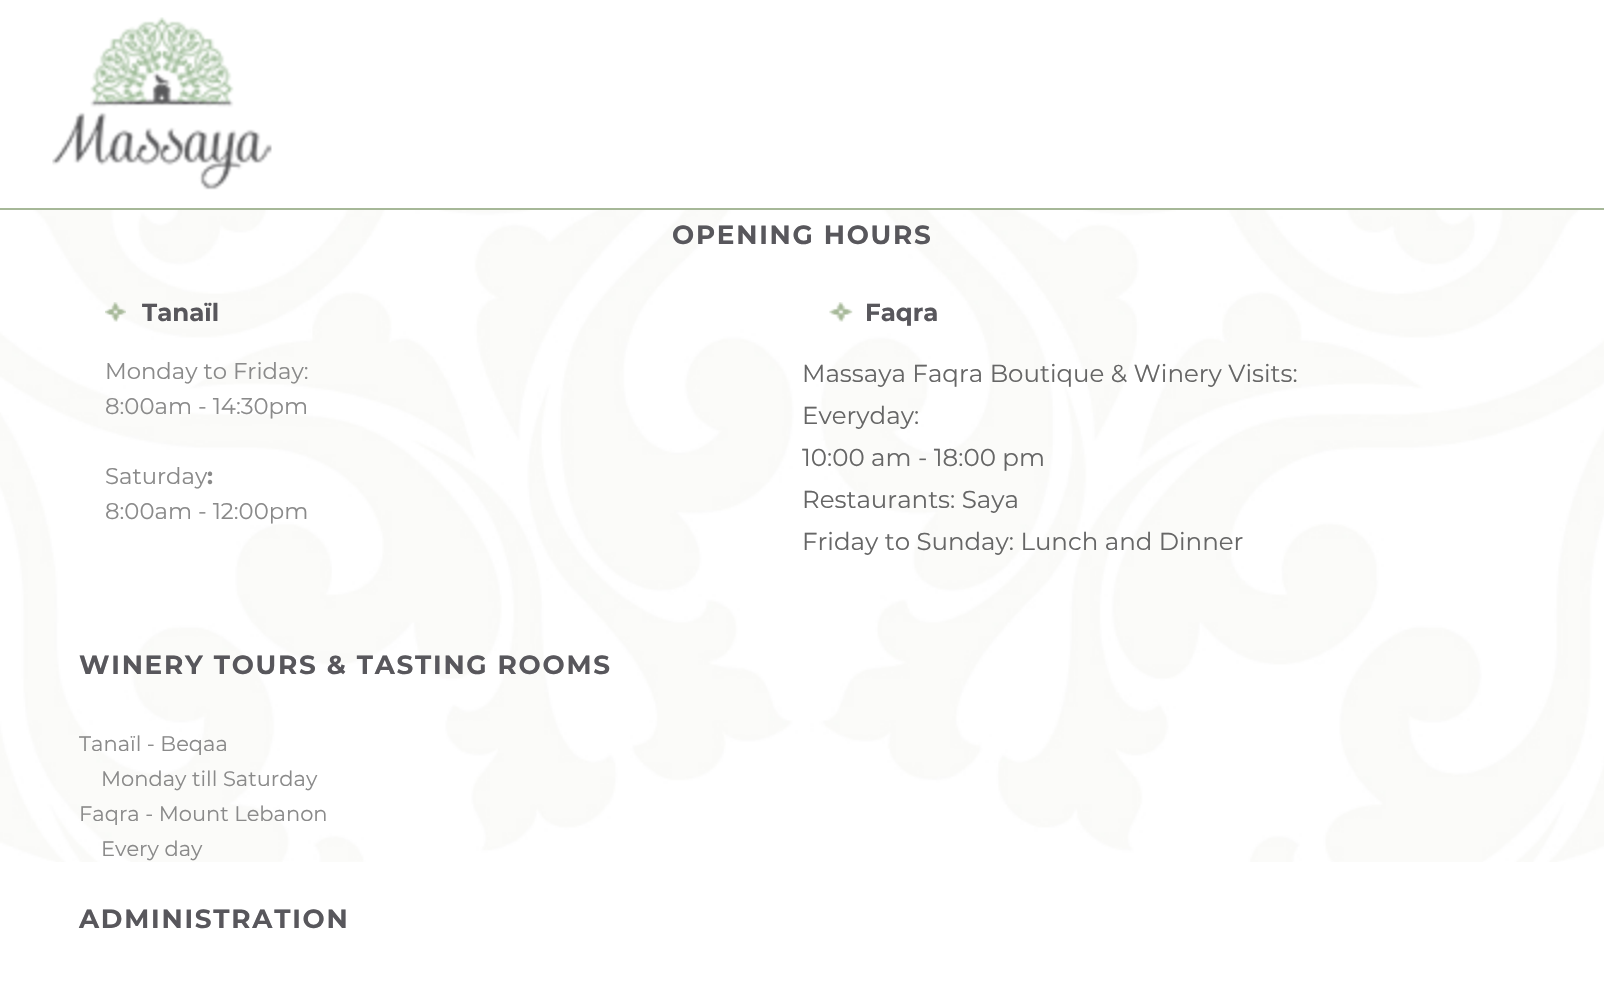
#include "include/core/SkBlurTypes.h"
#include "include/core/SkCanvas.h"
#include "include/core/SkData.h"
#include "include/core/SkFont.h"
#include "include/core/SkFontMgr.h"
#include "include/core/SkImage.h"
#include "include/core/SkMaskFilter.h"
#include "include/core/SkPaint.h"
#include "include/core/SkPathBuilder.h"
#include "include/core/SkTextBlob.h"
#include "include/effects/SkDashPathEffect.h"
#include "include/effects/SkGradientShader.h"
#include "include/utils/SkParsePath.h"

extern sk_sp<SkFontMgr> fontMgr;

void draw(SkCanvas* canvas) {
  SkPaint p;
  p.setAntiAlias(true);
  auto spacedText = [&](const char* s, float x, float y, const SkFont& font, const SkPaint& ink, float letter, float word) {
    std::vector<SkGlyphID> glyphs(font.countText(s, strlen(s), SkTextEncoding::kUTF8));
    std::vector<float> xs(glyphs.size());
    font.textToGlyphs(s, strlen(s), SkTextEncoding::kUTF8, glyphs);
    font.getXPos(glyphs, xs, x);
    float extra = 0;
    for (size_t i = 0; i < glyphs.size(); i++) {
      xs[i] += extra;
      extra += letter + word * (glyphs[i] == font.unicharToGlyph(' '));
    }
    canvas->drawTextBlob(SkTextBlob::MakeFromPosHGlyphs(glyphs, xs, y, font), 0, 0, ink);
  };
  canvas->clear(SK_ColorWHITE);
  p.setColor(SkColorSetRGB(166, 184, 152));
  canvas->drawRect(SkRect::MakeLTRB(0, 208, 1604, 210), p);
  canvas->drawImageRect(SkImages::DeferredFromEncodedData(SkData::MakeFromFileName("images/1.png")), SkRect::MakeLTRB(52, 17, 272, 190), SkSamplingOptions());
  canvas->drawImageRect(SkImages::DeferredFromEncodedData(SkData::MakeFromFileName("images/2.png")), SkRect::MakeLTRB(0, 210, 1604, 862), SkSamplingOptions());
  canvas->drawImageRect(SkImages::DeferredFromEncodedData(SkData::MakeFromFileName("images/3.png")), SkRect::MakeLTRB(105, 302, 126, 322), SkSamplingOptions());
  canvas->drawImageRect(SkImages::DeferredFromEncodedData(SkData::MakeFromFileName("images/4.png")), SkRect::MakeLTRB(829, 302, 853, 322), SkSamplingOptions());
  SkFont font1(fontMgr->matchFamilyStyle("Montserrat", SkFontStyle::Bold()), 26.25f);
  font1.setSubpixel(true);
  p.setColor(SkColorSetRGB(88, 87, 92));
  spacedText("OPENING HOURS", 672, 244, font1, p, 1.75f, 0);
  SkFont font2(fontMgr->matchFamilyStyle("Montserrat", SkFontStyle::Bold()), 24.5f);
  font2.setSubpixel(true);
  canvas->drawString("Tanaïl", 142, 321, font2, p);
  SkFont font3(fontMgr->matchFamilyStyle("Montserrat", SkFontStyle::Normal()), 22.75f);
  font3.setSubpixel(true);
  p.setColor(SkColorSetRGB(138, 138, 138));
  canvas->drawString("Monday to Friday:", 105, 379, font3, p);
  canvas->drawString("8:00am - 14:30pm", 105, 414, font3, p);
  canvas->drawString("Saturday", 105, 484, font3, p);
  SkFont font4(fontMgr->matchFamilyStyle("Montserrat", SkFontStyle::Bold()), 22.75f);
  font4.setSubpixel(true);
  canvas->drawString(":", 207, 484, font4, p);
  canvas->drawString("8:00am - 12:00pm", 105, 519, font3, p);
  p.setColor(SkColorSetRGB(88, 87, 92));
  canvas->drawString("Faqra", 865, 321, font2, p);
  SkFont font5(fontMgr->matchFamilyStyle("Montserrat", SkFontStyle::Normal()), 24.5f);
  font5.setSubpixel(true);
  p.setColor(SkColorSetRGB(102, 102, 102));
  canvas->drawString("Massaya Faqra Boutique & Winery Visits:", 802, 382, font5, p);
  canvas->drawString("Everyday:", 802, 424, font5, p);
  canvas->drawString("10:00 am - 18:00 pm", 802, 466, font5, p);
  canvas->drawString("Restaurants: Saya", 802, 508, font5, p);
  canvas->drawString("Friday to Sunday: Lunch and Dinner", 802, 550, font5, p);
  p.setColor(SkColorSetRGB(88, 87, 92));
  spacedText("WINERY TOURS & TASTING ROOMS", 79, 674, font1, p, 1.75f, 0);
  SkFont font6(fontMgr->matchFamilyStyle("Montserrat", SkFontStyle::Normal()), 21);
  font6.setSubpixel(true);
  p.setColor(SkColorSetRGB(138, 138, 138));
  canvas->drawString("Tanaïl - Beqaa", 79, 751, font6, p);
  canvas->drawString("Monday till Saturday", 101, 786, font6, p);
  canvas->drawString("Faqra - Mount Lebanon", 79, 821, font6, p);
  canvas->drawString("Every day", 101, 856, font6, p);
  p.setColor(SkColorSetRGB(88, 87, 92));
  spacedText("ADMINISTRATION", 79, 928, font1, p, 1.75f, 0);
}
